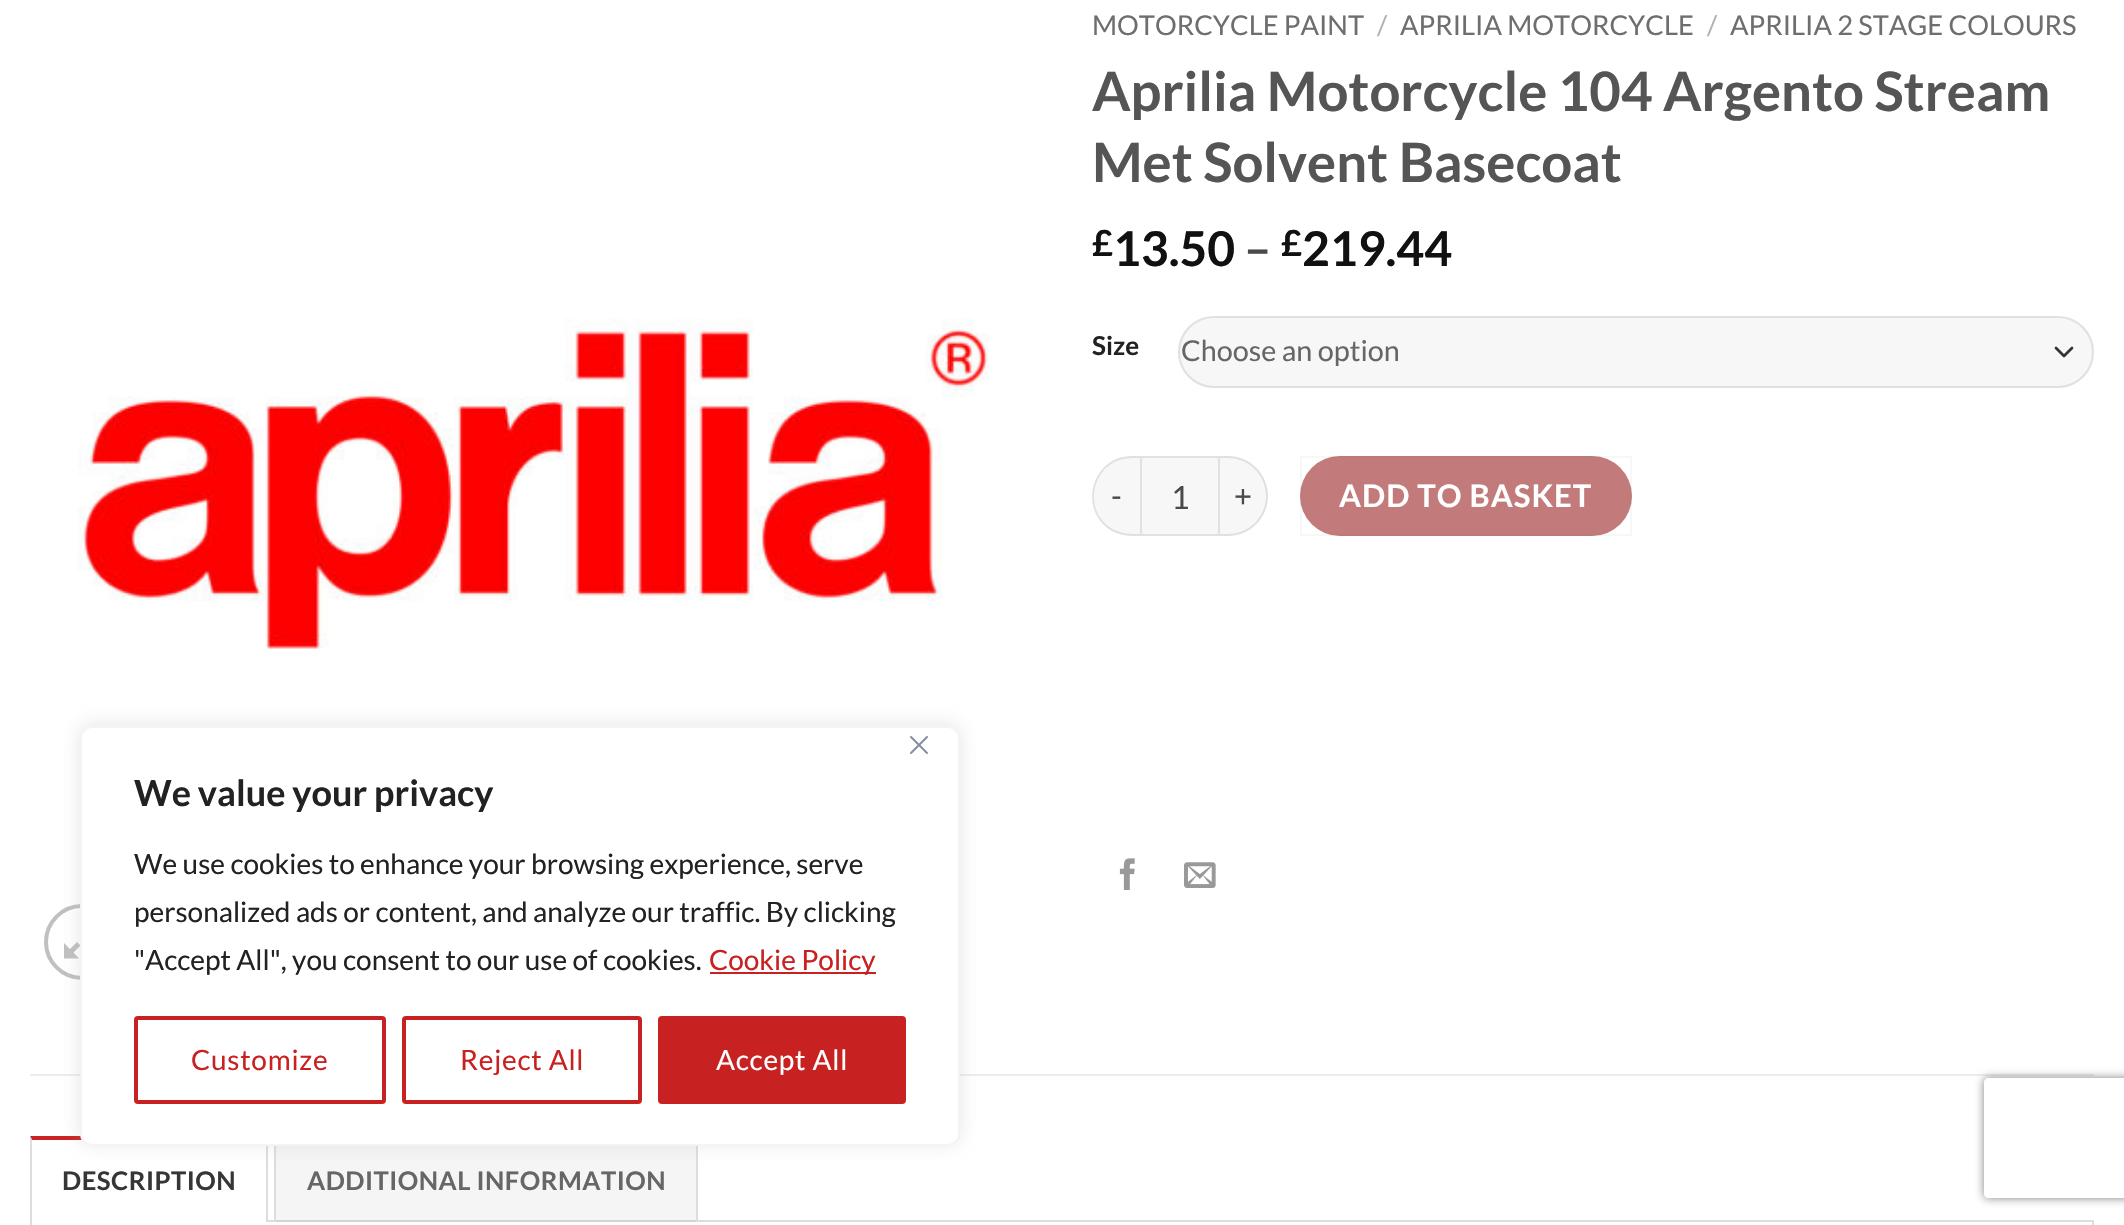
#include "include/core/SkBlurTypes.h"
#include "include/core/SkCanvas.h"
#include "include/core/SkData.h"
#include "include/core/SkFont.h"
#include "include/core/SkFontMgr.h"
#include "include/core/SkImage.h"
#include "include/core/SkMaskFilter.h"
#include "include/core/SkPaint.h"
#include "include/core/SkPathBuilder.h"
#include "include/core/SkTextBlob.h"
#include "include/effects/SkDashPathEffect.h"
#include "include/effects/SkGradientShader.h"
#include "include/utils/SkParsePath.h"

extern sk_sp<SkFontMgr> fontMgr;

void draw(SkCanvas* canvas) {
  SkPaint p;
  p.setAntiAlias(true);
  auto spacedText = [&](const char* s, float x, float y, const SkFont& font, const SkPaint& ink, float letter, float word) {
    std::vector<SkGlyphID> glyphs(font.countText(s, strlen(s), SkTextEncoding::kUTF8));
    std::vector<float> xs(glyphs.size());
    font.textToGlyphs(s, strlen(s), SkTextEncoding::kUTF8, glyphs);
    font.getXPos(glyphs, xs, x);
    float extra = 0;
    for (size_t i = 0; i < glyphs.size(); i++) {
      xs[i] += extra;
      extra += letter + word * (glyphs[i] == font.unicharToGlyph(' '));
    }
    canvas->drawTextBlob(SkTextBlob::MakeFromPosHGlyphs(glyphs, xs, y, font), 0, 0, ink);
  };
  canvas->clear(SK_ColorWHITE);
  p.setColor(SkColorSetRGB(247, 247, 247));
  canvas->drawRoundRect(SkRect::MakeLTRB(1178, 316, 2094, 388), 36, 36, p);
  p.setStyle(SkPaint::kStroke_Style);
  p.setStrokeWidth(2.7f);
  p.setStrokeCap(SkPaint::kRound_Cap);
  p.setStrokeJoin(SkPaint::kRound_Join);
  p.setColor(SkColorSetRGB(51, 51, 51));
  canvas->drawPath(SkPathBuilder().moveTo(2056, 348).lineTo(2064, 356).lineTo(2072, 348).detach(), p);
  p.setStrokeWidth(2);
  p.setStrokeCap(SkPaint::kButt_Cap);
  p.setStrokeJoin(SkPaint::kMiter_Join);
  p.setColor(SkColorSetARGB(23, 0, 0, 0));
  canvas->drawRoundRect(SkRect::MakeLTRB(1179, 317, 2093, 387), 35, 35, p);
  p.setStyle(SkPaint::kFill_Style);
  p.setColor(SkColorSetRGB(247, 247, 247));
  canvas->drawPath(SkPathBuilder().moveTo(1132, 456).lineTo(1140, 456).lineTo(1140, 536).lineTo(1132, 536).cubicTo(1110, 536, 1092, 518, 1092, 496).cubicTo(1092, 474, 1110, 456, 1132, 456).close().detach(), p);
  p.setColor(SkColorSetARGB(23, 0, 0, 0));
  canvas->drawPath(SkPathBuilder(SkPathFillType::kEvenOdd).moveTo(1132, 456).lineTo(1140, 456).lineTo(1140, 536).cubicTo(1132, 536, 1124, 536, 1116, 533).cubicTo(1077, 516, 1089, 456, 1132, 456).close().moveTo(1132, 458).lineTo(1140, 458).lineTo(1140, 534).cubicTo(1132, 534, 1125, 534, 1117, 531).cubicTo(1079, 515, 1091, 458, 1132, 458).close().detach(), p);
  p.setColor(SkColorSetRGB(247, 247, 247));
  canvas->drawRect(SkRect::MakeLTRB(1141, 457, 1219, 535), p);
  p.setStyle(SkPaint::kStroke_Style);
  p.setColor(SkColorSetRGB(225, 225, 225));
  canvas->drawRect(SkRect::MakeLTRB(1141, 457, 1219, 535), p);
  p.setStyle(SkPaint::kFill_Style);
  p.setColor(SkColorSetRGB(247, 247, 247));
  canvas->drawPath(SkPathBuilder().moveTo(1220, 456).lineTo(1228, 456).cubicTo(1250, 456, 1268, 474, 1268, 496).cubicTo(1268, 518, 1250, 536, 1228, 536).lineTo(1220, 536).close().detach(), p);
  p.setColor(SkColorSetARGB(23, 0, 0, 0));
  canvas->drawPath(SkPathBuilder(SkPathFillType::kEvenOdd).moveTo(1220, 456).lineTo(1228, 456).cubicTo(1250, 456, 1268, 474, 1268, 496).cubicTo(1268, 518, 1250, 536, 1228, 536).lineTo(1220, 536).close().moveTo(1220, 458).lineTo(1228, 458).cubicTo(1249, 458, 1266, 475, 1266, 496).cubicTo(1266, 517, 1249, 534, 1228, 534).lineTo(1220, 534).close().detach(), p);
  p.setColor(SkColorSetRGB(194, 122, 122));
  canvas->drawRoundRect(SkRect::MakeLTRB(1300, 456, 1632, 536), 40, 40, p);
  p.setStyle(SkPaint::kStroke_Style);
  p.setColor(SkColorSetARGB(13, 102, 102, 102));
  canvas->drawRect(SkRect::MakeLTRB(1301, 457, 1631, 535), p);
  canvas->drawImageRect(SkImages::DeferredFromEncodedData(SkData::MakeFromFileName("images/1.png")), SkRect::MakeLTRB(1119, 858, 1135, 890), SkSamplingOptions());
  canvas->drawImageRect(SkImages::DeferredFromEncodedData(SkData::MakeFromFileName("images/2.png")), SkRect::MakeLTRB(1184, 862, 1216, 888), SkSamplingOptions());
  canvas->drawImageRect(SkImages::DeferredFromEncodedData(SkData::MakeFromFileName("images/3.png")), SkRect::MakeLTRB(77, 318, 989, 649), SkSamplingOptions());
  p.setStrokeWidth(4);
  p.setColor(SkColorSetRGB(192, 192, 192));
  canvas->drawRoundRect(SkRect::MakeLTRB(46, 906, 120, 978), 36, 36, p);
  p.setStyle(SkPaint::kFill_Style);
  canvas->drawPath(SkPathBuilder().moveTo(101, 921).lineTo(101, 936).lineTo(95.5f, 930.5f).lineTo(88.5f, 937.5f).lineTo(85, 934).lineTo(92, 927).lineTo(86, 921).close().moveTo(80.5f, 945.5f).lineTo(73.5f, 952.5f).lineTo(79, 958.5f).lineTo(64, 958.5f).lineTo(64, 943).lineTo(70, 949).lineTo(77, 942).close().detach(), p);
  p.setColor(SkColorSetRGB(236, 236, 236));
  canvas->drawRect(SkRect::MakeLTRB(30, 1074, 2094, 1076), p);
  p.setStyle(SkPaint::kStroke_Style);
  p.setStrokeWidth(2);
  p.setColor(SkColorSetRGB(221, 221, 221));
  canvas->drawRect(SkRect::MakeLTRB(31, 1221, 2093, 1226), p);
  p.setStyle(SkPaint::kFill_Style);
  p.setColor(SK_ColorWHITE);
  canvas->drawRect(SkRect::MakeLTRB(30, 1220, 266, 1222), p);
  p.setColor(SkColorSetRGB(200, 34, 34));
  canvas->drawPath(SkPathBuilder().moveTo(30, 1136).lineTo(268, 1136).lineTo(266, 1140).lineTo(32, 1140).close().detach(), p);
  p.setColor(SkColorSetRGB(221, 221, 221));
  canvas->drawPath(SkPathBuilder().moveTo(268, 1136).lineTo(268, 1222).lineTo(266, 1222).lineTo(266, 1140).close().detach(), p);
  canvas->drawPath(SkPathBuilder().moveTo(30, 1222).lineTo(30, 1136).lineTo(32, 1140).lineTo(32, 1222).close().detach(), p);
  p.setColor(SkColorSetARGB(10, 0, 0, 0));
  canvas->drawRect(SkRect::MakeLTRB(276, 1146, 696, 1222), p);
  p.setColor(SkColorSetRGB(221, 221, 221));
  canvas->drawRect(SkRect::MakeLTRB(696, 1146, 698, 1222), p);
  canvas->drawRect(SkRect::MakeLTRB(274, 1146, 276, 1222), p);
  p.setColor(SkColorSetARGB(77, 172, 171, 171));
  p.setMaskFilter(SkMaskFilter::MakeBlur(kNormal_SkBlurStyle, 10));
  canvas->drawRoundRect(SkRect::MakeLTRB(80, 724, 960, 1144), 12, 12, p);
  p.setMaskFilter(nullptr);
  p.setColor(SK_ColorWHITE);
  canvas->drawRoundRect(SkRect::MakeLTRB(81, 727, 959, 1145), 11, 11, p);
  p.setStyle(SkPaint::kStroke_Style);
  p.setColor(SkColorSetRGB(244, 244, 244));
  canvas->drawRoundRect(SkRect::MakeLTRB(81, 727, 959, 1145), 11, 11, p);
  canvas->drawImageRect(SkImages::DeferredFromEncodedData(SkData::MakeFromFileName("images/4.png")), SkRect::MakeLTRB(910, 736, 928, 754), SkSamplingOptions());
  p.setStyle(SkPaint::kFill_Style);
  p.setColor(SkColorSetRGB(200, 33, 33));
  canvas->drawRect(SkRect::MakeLTRB(710, 972, 876, 974), p);
  p.setStyle(SkPaint::kStroke_Style);
  p.setStrokeWidth(4);
  canvas->drawRoundRect(SkRect::MakeLTRB(136, 1018, 384, 1102), 2, 2, p);
  canvas->drawRoundRect(SkRect::MakeLTRB(404, 1018, 640, 1102), 2, 2, p);
  p.setStyle(SkPaint::kFill_Style);
  canvas->drawRoundRect(SkRect::MakeLTRB(660, 1018, 904, 1102), 2, 2, p);
  p.setStyle(SkPaint::kStroke_Style);
  canvas->drawRoundRect(SkRect::MakeLTRB(660, 1018, 904, 1102), 2, 2, p);
  canvas->save();
  canvas->clipPath(SkPathBuilder(SkPathFillType::kEvenOdd).moveTo(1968, 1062).lineTo(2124, 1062).lineTo(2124, 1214).lineTo(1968, 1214).close().moveTo(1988, 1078).lineTo(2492, 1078).cubicTo(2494, 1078, 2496, 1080, 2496, 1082).lineTo(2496, 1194).cubicTo(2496, 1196, 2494, 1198, 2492, 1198).lineTo(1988, 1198).cubicTo(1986, 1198, 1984, 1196, 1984, 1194).lineTo(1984, 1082).cubicTo(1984, 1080, 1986, 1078, 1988, 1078).close().detach(), true);
  p.setStyle(SkPaint::kFill_Style);
  p.setColor(SkColorSetRGB(128, 128, 128));
  p.setMaskFilter(SkMaskFilter::MakeBlur(kNormal_SkBlurStyle, 5));
  canvas->drawRoundRect(SkRect::MakeLTRB(1984, 1078, 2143, 1198), 4, 4, p);
  p.setMaskFilter(nullptr);
  canvas->restore();
  SkFont font1(fontMgr->matchFamilyStyle("Lato", SkFontStyle::Normal()), 27.25f);
  font1.setSubpixel(true);
  p.setColor(SkColorSetRGB(110, 110, 110));
  canvas->drawString("MOTORCYCLE PAINT", 1092, 35, font1, p);
  p.setColor(SkColorSetRGB(178, 178, 178));
  canvas->drawString("/", 1377, 35, font1, p);
  p.setColor(SkColorSetRGB(110, 110, 110));
  canvas->drawString("APRILIA MOTORCYCLE", 1400, 35, font1, p);
  p.setColor(SkColorSetRGB(178, 178, 178));
  canvas->drawString("/", 1707, 35, font1, p);
  p.setColor(SkColorSetRGB(110, 110, 110));
  canvas->drawString("APRILIA 2 STAGE COLOURS", 1730, 35, font1, p);
  SkFont font2(fontMgr->matchFamilyStyle("Lato", SkFontStyle::Bold()), 54.4f);
  font2.setSubpixel(true);
  p.setColor(SkColorSetRGB(85, 85, 85));
  canvas->drawString("Aprilia Motorcycle 104 Argento Stream", 1092, 111, font2, p);
  canvas->drawString("Met Solvent Basecoat", 1092, 182, font2, p);
  SkFont font3(fontMgr->matchFamilyStyle("Lato", SkFontStyle::Bold()), 36);
  font3.setSubpixel(true);
  p.setColor(SkColorSetRGB(17, 17, 17));
  canvas->drawString("£", 1092, 256, font3, p);
  SkFont font4(fontMgr->matchFamilyStyle("Lato", SkFontStyle::Bold()), 48);
  font4.setSubpixel(true);
  canvas->drawString("13.50", 1113, 266, font4, p);
  p.setColor(SkColorSetRGB(74, 74, 74));
  canvas->drawString("–", 1244, 266, font4, p);
  p.setColor(SkColorSetRGB(17, 17, 17));
  canvas->drawString("£", 1281, 256, font3, p);
  canvas->drawString("219.44", 1302, 266, font4, p);
  SkFont font5(fontMgr->matchFamilyStyle("Lato", SkFontStyle::Bold()), 26);
  font5.setSubpixel(true);
  p.setColor(SkColorSetRGB(34, 34, 34));
  canvas->drawString("Size", 1092, 355, font5, p);
  SkFont font6(fontMgr->matchFamilyStyle("Lato", SkFontStyle::Normal()), 28.75f);
  font6.setSubpixel(true);
  p.setColor(SkColorSetRGB(102, 102, 102));
  canvas->drawString("Choose an option", 1181, 361, font6, p);
  SkFont font7(fontMgr->matchFamilyStyle("Lato", SkFontStyle::Normal()), 31);
  font7.setSubpixel(true);
  p.setColor(SkColorSetRGB(74, 74, 74));
  spacedText("-", 1111, 507, font7, p, 1, 0);
  SkFont font8(fontMgr->matchFamilyStyle("Lato", SkFontStyle::Normal()), 32);
  font8.setSubpixel(true);
  canvas->drawString("1", 1171, 509, font8, p);
  spacedText("+", 1234, 507, font7, p, 1, 0);
  SkFont font9(fontMgr->matchFamilyStyle("Lato", SkFontStyle::Bold()), 31);
  font9.setSubpixel(true);
  p.setColor(SK_ColorWHITE);
  spacedText("ADD TO BASKET", 1339, 507, font9, p, 1, 0);
  SkFont font10(fontMgr->matchFamilyStyle("Lato", SkFontStyle::Bold()), 25.6f);
  font10.setSubpixel(true);
  p.setColor(SkColorSetRGB(54, 54, 54));
  spacedText("DESCRIPTION", 62, 1190, font10, p, 0.5f, 0);
  p.setColor(SkColorSetRGB(102, 102, 102));
  spacedText("ADDITIONAL INFORMATION", 307, 1190, font10, p, 0.5f, 0);
  p.setColor(SkColorSetRGB(34, 34, 34));
  canvas->drawString("We value your privacy", 134, 806, font3, p);
  SkFont font11(fontMgr->matchFamilyStyle("Lato", SkFontStyle::Normal()), 28);
  font11.setSubpixel(true);
  canvas->drawString("We use cookies to enhance your browsing experience, serve", 134, 874, font11, p);
  canvas->drawString("personalized ads or content, and analyze our traffic. By clicking", 134, 922, font11, p);
  canvas->drawString("\"Accept All\", you consent to our use of cookies.", 134, 970, font11, p);
  p.setColor(SkColorSetRGB(200, 33, 33));
  canvas->drawString("Cookie Policy", 709, 970, font11, p);
  spacedText("Customize", 191, 1070, font11, p, 0.75f, 0);
  spacedText("Reject All", 460, 1070, font11, p, 0.75f, 0);
  p.setColor(SK_ColorWHITE);
  spacedText("Accept All", 716, 1070, font11, p, 0.75f, 0);
}
